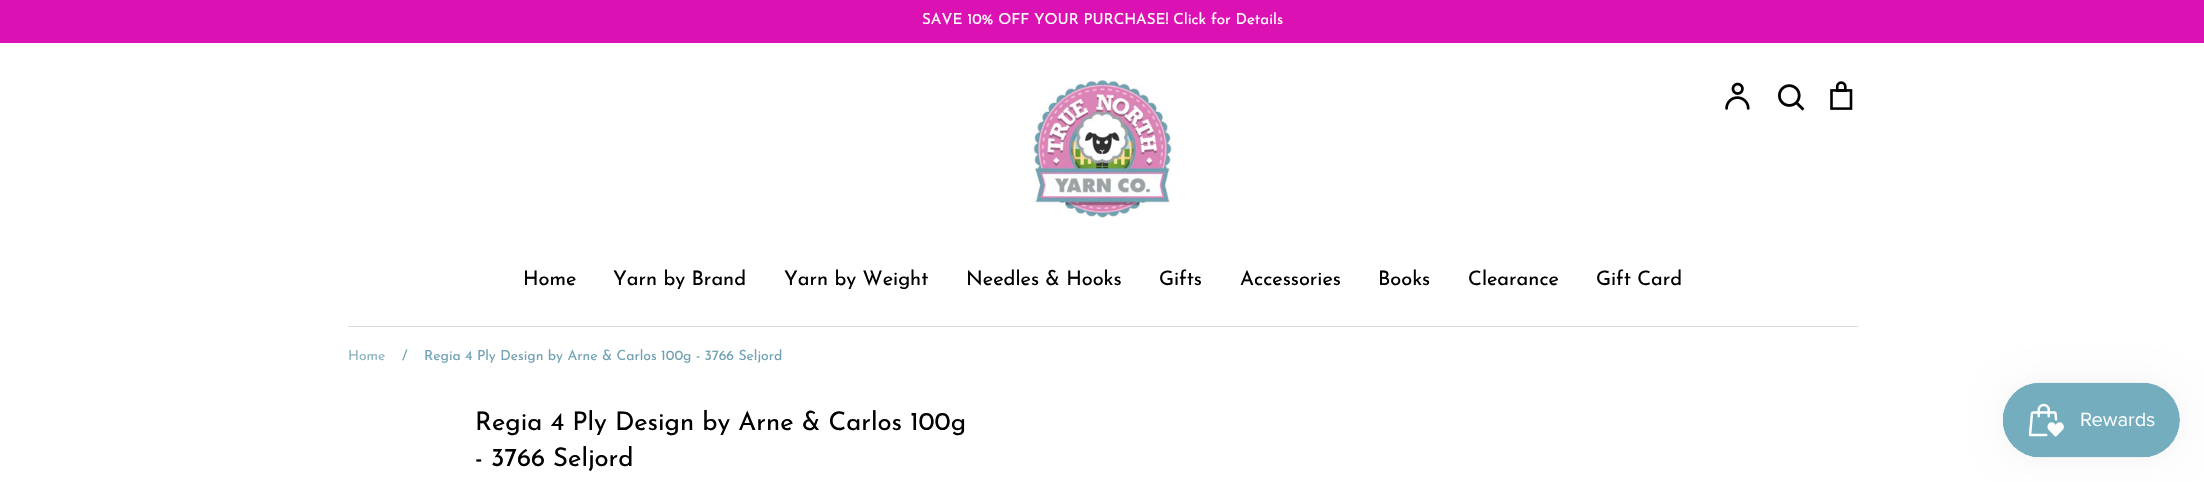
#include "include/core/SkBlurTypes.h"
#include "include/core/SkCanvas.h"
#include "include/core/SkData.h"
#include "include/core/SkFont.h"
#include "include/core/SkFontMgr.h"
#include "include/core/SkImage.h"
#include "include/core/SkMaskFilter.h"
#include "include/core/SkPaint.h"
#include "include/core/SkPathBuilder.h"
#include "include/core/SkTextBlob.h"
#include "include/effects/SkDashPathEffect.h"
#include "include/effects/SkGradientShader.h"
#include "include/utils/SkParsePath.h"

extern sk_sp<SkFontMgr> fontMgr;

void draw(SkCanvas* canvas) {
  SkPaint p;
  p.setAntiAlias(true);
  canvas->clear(SK_ColorWHITE);
  p.setColor(SkColorSetRGB(219, 17, 180));
  canvas->drawRect(SkRect::MakeLTRB(0, 0, 2204, 43), p);
  canvas->drawImageRect(SkImages::DeferredFromEncodedData(SkData::MakeFromFileName("images/1.png")), SkRect::MakeLTRB(1033, 80, 1172, 218), SkSamplingOptions());
  canvas->drawImageRect(SkImages::DeferredFromEncodedData(SkData::MakeFromFileName("images/2.png")), SkRect::MakeLTRB(1725, 82, 1750, 110), SkSamplingOptions());
  canvas->drawImageRect(SkImages::DeferredFromEncodedData(SkData::MakeFromFileName("images/3.png")), SkRect::MakeLTRB(1778, 84, 1805, 111), SkSamplingOptions());
  canvas->drawImageRect(SkImages::DeferredFromEncodedData(SkData::MakeFromFileName("images/4.png")), SkRect::MakeLTRB(1830, 81, 1853, 110), SkSamplingOptions());
  p.setColor(SkColorSetRGB(217, 217, 217));
  canvas->drawRect(SkRect::MakeLTRB(348, 326, 1858, 327), p);
  p.setColor(SkColorSetARGB(13, 0, 0, 0));
  p.setMaskFilter(SkMaskFilter::MakeBlur(kNormal_SkBlurStyle, 15.5f));
  canvas->drawRoundRect(SkRect::MakeLTRB(2003, 383, 2180, 458), 37.5f, 37.5f, p);
  p.setMaskFilter(nullptr);
  canvas->drawImageRect(SkImages::DeferredFromEncodedData(SkData::MakeFromFileName("images/5.png")), SkRect::MakeLTRB(2002, 382, 2180, 458), SkSamplingOptions());
  SkFont font1(fontMgr->matchFamilyStyle("Josefin Sans", SkFontStyle::Normal()), 15.2f);
  font1.setSubpixel(true);
  p.setColor(SK_ColorWHITE);
  canvas->drawString("SAVE 10% OFF YOUR PURCHASE! Click for Details", 922, 24, font1, p);
  SkFont font2(fontMgr->matchFamilyStyle("Josefin Sans", SkFontStyle::Normal()), 20);
  font2.setSubpixel(true);
  p.setColor(SK_ColorBLACK);
  canvas->drawString("Home", 523, 285, font2, p);
  canvas->drawString("Yarn by Brand", 613, 285, font2, p);
  canvas->drawString("Yarn by Weight", 784, 285, font2, p);
  canvas->drawString("Needles & Hooks", 966, 285, font2, p);
  canvas->drawString("Gifts", 1159, 285, font2, p);
  canvas->drawString("Accessories", 1240, 285, font2, p);
  canvas->drawString("Books", 1378, 285, font2, p);
  canvas->drawString("Clearance", 1468, 285, font2, p);
  canvas->drawString("Gift Card", 1596, 285, font2, p);
  SkFont font3(fontMgr->matchFamilyStyle("Josefin Sans", SkFontStyle::Normal()), 14);
  font3.setSubpixel(true);
  p.setColor(SkColorSetRGB(142, 181, 194));
  canvas->drawString("Home", 348, 360, font3, p);
  p.setColor(SkColorSetRGB(114, 162, 179));
  canvas->drawString("/", 402, 360, font3, p);
  canvas->drawString("Regia 4 Ply Design by Arne & Carlos 100g - 3766 Seljord", 424, 360, font3, p);
  SkFont font4(fontMgr->matchFamilyStyle("Josefin Sans", SkFontStyle::Normal()), 25.7f);
  font4.setSubpixel(true);
  p.setColor(SK_ColorBLACK);
  canvas->drawString("Regia 4 Ply Design by Arne & Carlos 100g", 475, 430, font4, p);
  canvas->drawString("- 3766 Seljord", 475, 466, font4, p);
}
